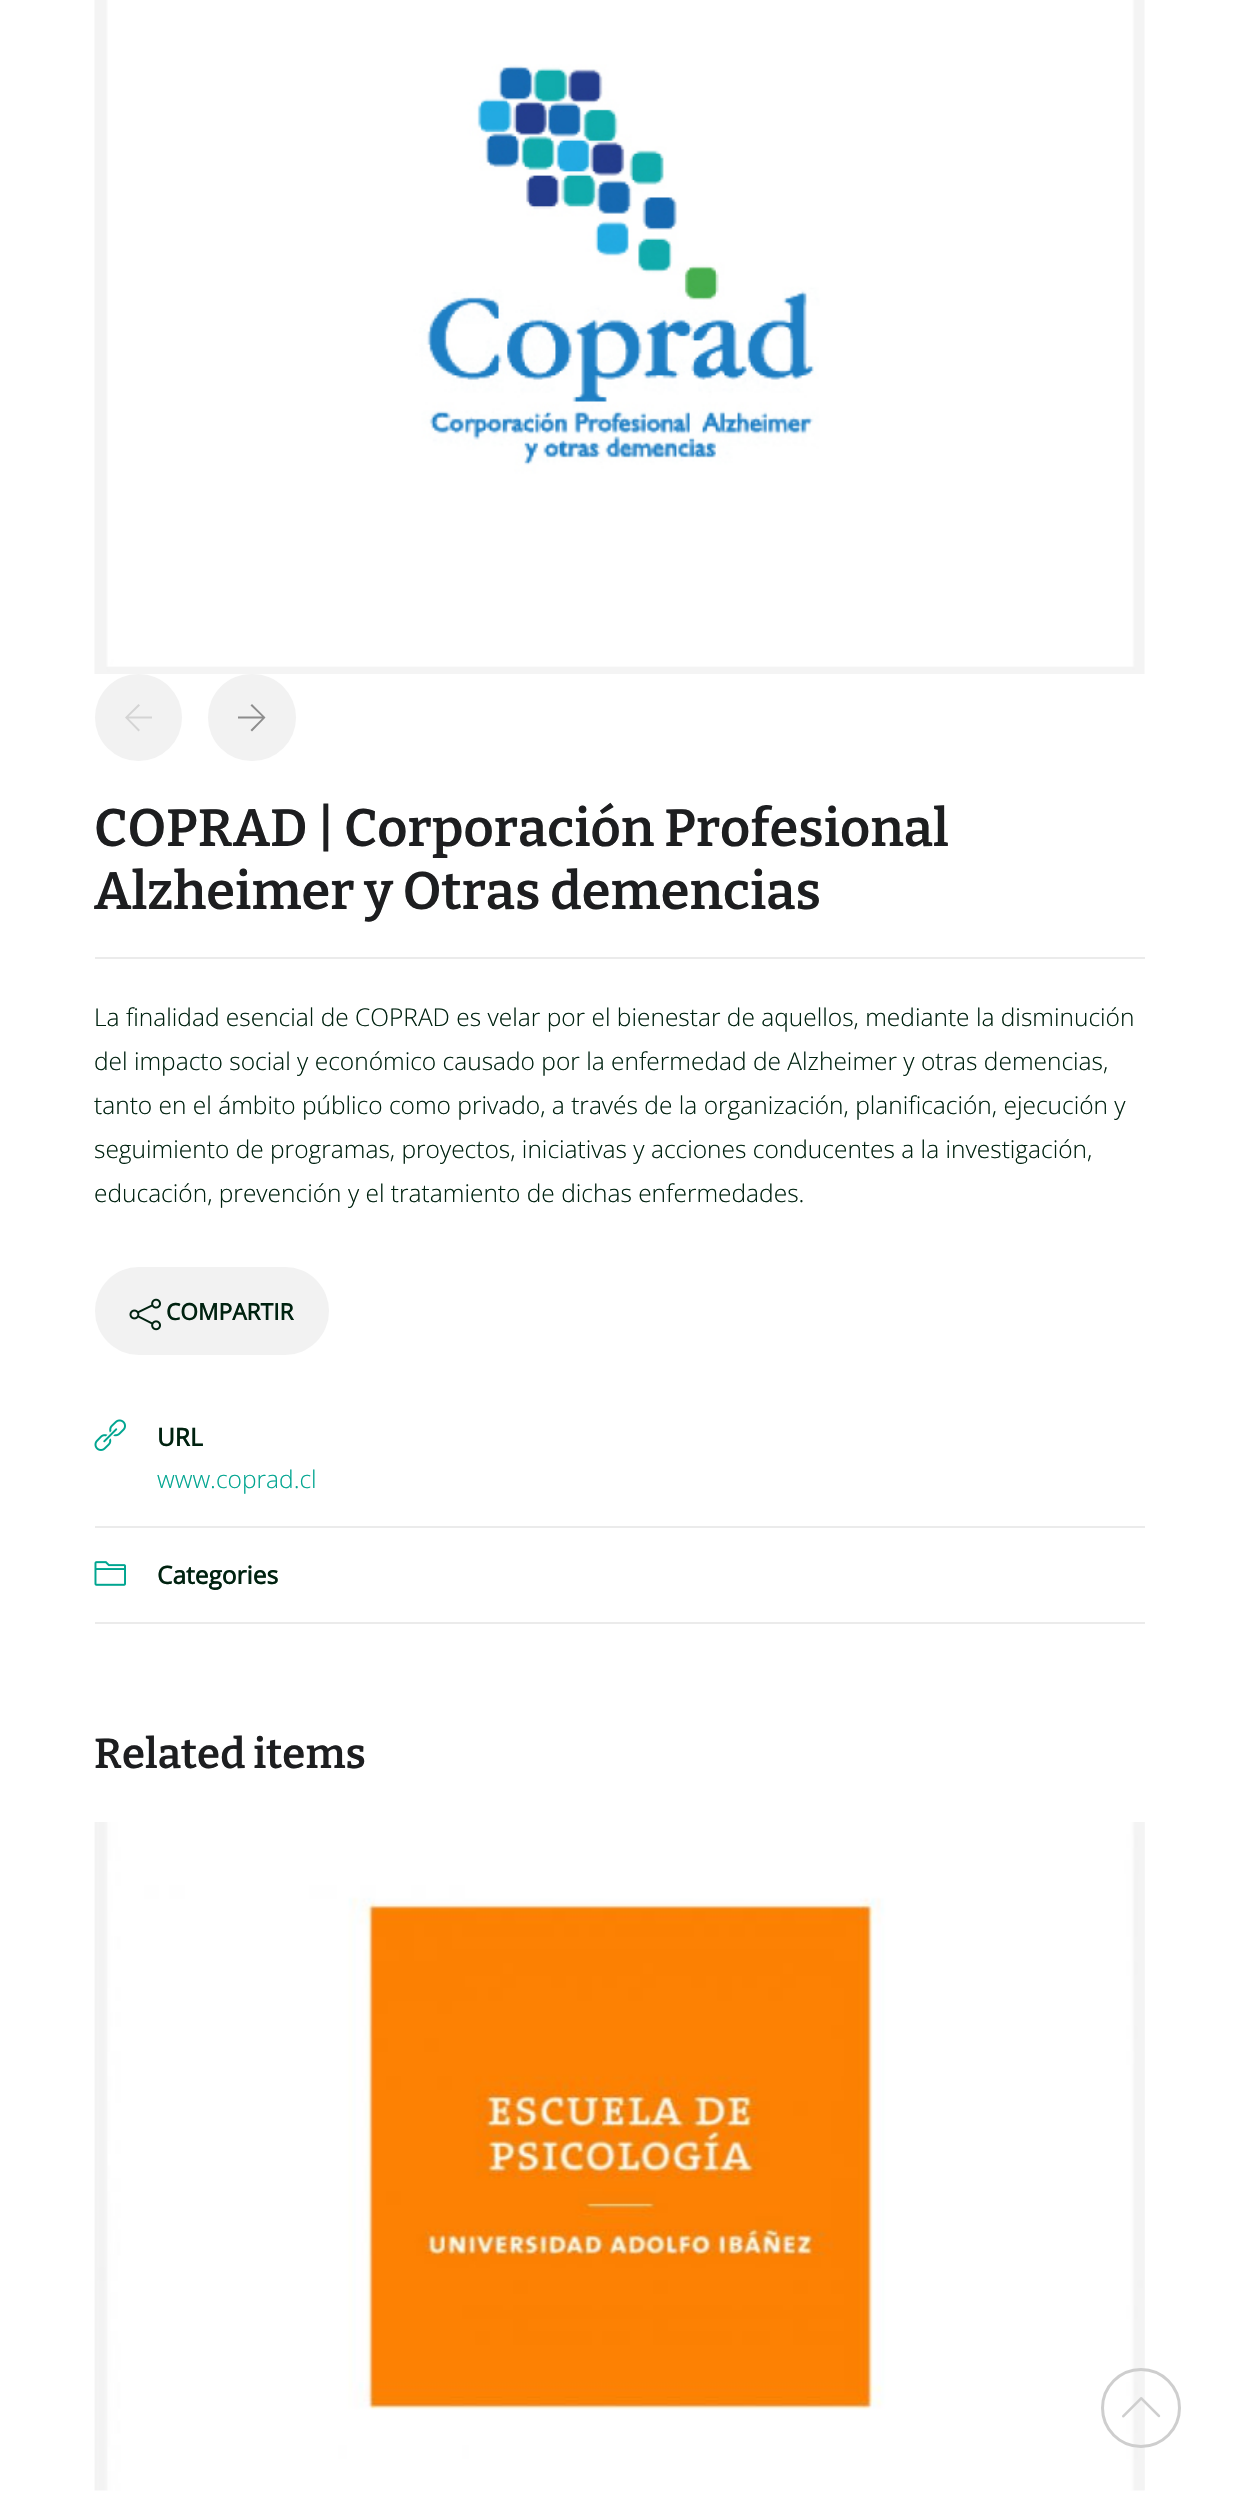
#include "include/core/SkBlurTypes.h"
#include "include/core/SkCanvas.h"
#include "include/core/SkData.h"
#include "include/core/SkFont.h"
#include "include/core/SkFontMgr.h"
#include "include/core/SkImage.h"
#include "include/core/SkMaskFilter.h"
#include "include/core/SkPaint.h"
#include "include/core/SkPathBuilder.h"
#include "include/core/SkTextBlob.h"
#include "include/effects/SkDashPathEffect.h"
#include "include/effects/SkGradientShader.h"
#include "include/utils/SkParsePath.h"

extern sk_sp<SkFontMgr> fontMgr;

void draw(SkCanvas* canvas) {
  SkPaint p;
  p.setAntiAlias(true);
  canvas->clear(SK_ColorWHITE);
  canvas->drawImageRect(SkImages::DeferredFromEncodedData(SkData::MakeFromFileName("images/1.png")), SkRect::MakeLTRB(94, 0, 1145, 674), SkSamplingOptions());
  p.setColor(SkColorSetRGB(242, 242, 242));
  canvas->drawCircle(138.5f, 717.5f, 43.5f, p);
  p.setColor(SkColorSetRGB(212, 212, 212));
  canvas->drawPath(SkPathBuilder().moveTo(152, 718.5f).lineTo(128.5f, 718.5f).lineTo(140, 730).lineTo(138.5f, 731.5f).lineTo(125, 717.5f).lineTo(138.5f, 704).lineTo(140, 705.5f).lineTo(128.5f, 716.5f).lineTo(152, 716.5f).close().detach(), p);
  p.setColor(SkColorSetRGB(242, 242, 242));
  canvas->drawRoundRect(SkRect::MakeLTRB(208, 674, 296, 761), 43.5f, 43.5f, p);
  p.setColor(SkColorSetRGB(141, 141, 141));
  canvas->drawPath(SkPathBuilder().moveTo(265.5f, 717.5f).lineTo(252, 731.5f).lineTo(250.5f, 730).lineTo(262, 718.5f).lineTo(238, 718.5f).lineTo(238, 716.5f).lineTo(262, 716.5f).lineTo(250.5f, 705.5f).lineTo(252, 704).close().detach(), p);
  p.setColor(SkColorSetRGB(235, 235, 235));
  canvas->drawRect(SkRect::MakeLTRB(95, 957, 1145, 959), p);
  p.setColor(SkColorSetRGB(242, 242, 242));
  canvas->drawRoundRect(SkRect::MakeLTRB(95, 1267, 329, 1355), 44, 44, p);
  canvas->drawImageRect(SkImages::DeferredFromEncodedData(SkData::MakeFromFileName("images/2.png")), SkRect::MakeLTRB(129, 1298, 161, 1331), SkSamplingOptions());
  p.setColor(SkColorSetRGB(235, 235, 235));
  canvas->drawRect(SkRect::MakeLTRB(95, 1526, 1145, 1528), p);
  canvas->drawImageRect(SkImages::DeferredFromEncodedData(SkData::MakeFromFileName("images/3.png")), SkRect::MakeLTRB(94, 1419, 126, 1451), SkSamplingOptions());
  canvas->drawRect(SkRect::MakeLTRB(95, 1622, 1145, 1624), p);
  canvas->drawImageRect(SkImages::DeferredFromEncodedData(SkData::MakeFromFileName("images/4.png")), SkRect::MakeLTRB(94, 1561, 126, 1586), SkSamplingOptions());
  canvas->drawImageRect(SkImages::DeferredFromEncodedData(SkData::MakeFromFileName("images/5.png")), SkRect::MakeLTRB(94, 1822, 1145, 2491), SkSamplingOptions());
  p.setStyle(SkPaint::kStroke_Style);
  p.setStrokeWidth(3);
  p.setColor(SkColorSetRGB(206, 206, 206));
  canvas->drawCircle(1141, 2408, 38.5f, p);
  canvas->drawImageRect(SkImages::DeferredFromEncodedData(SkData::MakeFromFileName("images/6.png")), SkRect::MakeLTRB(1122, 2397, 1161, 2418), SkSamplingOptions());
  SkFont font1(fontMgr->matchFamilyStyle("Bitter", SkFontStyle(100, SkFontStyle::kNormal_Width, SkFontStyle::kUpright_Slant)), 52.5f);
  font1.setSubpixel(true);
  p.setStyle(SkPaint::kFill_Style);
  p.setColor(SkColorSetRGB(29, 30, 32));
  canvas->drawString("COPRAD | Corporación Profesional", 94, 846, font1, p);
  canvas->drawString("Alzheimer y Otras demencias", 94, 909, font1, p);
  SkFont font2(fontMgr->matchFamilyStyle("Open Sans", SkFontStyle(300, SkFontStyle::kNormal_Width, SkFontStyle::kUpright_Slant)), 24.5f);
  font2.setSubpixel(true);
  p.setColor(SkColorSetRGB(0, 34, 16));
  canvas->drawString("La finalidad esencial de COPRAD es velar por el bienestar de aquellos, mediante la disminución", 94, 1026, font2, p);
  canvas->drawString("del impacto social y económico causado por la enfermedad de Alzheimer y otras demencias,", 94, 1070, font2, p);
  canvas->drawString("tanto en el ámbito público como privado, a través de la organización, planificación, ejecución y", 94, 1114, font2, p);
  canvas->drawString("seguimiento de programas, proyectos, iniciativas y acciones conducentes a la investigación,", 94, 1158, font2, p);
  canvas->drawString("educación, prevención y el tratamiento de dichas enfermedades.", 94, 1202, font2, p);
  SkFont font3(fontMgr->matchFamilyStyle("Open Sans", SkFontStyle::Bold()), 22.75f);
  font3.setSubpixel(true);
  canvas->drawString("COMPARTIR", 166, 1320, font3, p);
  SkFont font4(fontMgr->matchFamilyStyle("Open Sans", SkFontStyle::Bold()), 24.5f);
  font4.setSubpixel(true);
  canvas->drawString("URL", 157, 1446, font4, p);
  p.setColor(SkColorSetRGB(0, 165, 144));
  canvas->drawString("www.coprad.cl", 157, 1488, font2, p);
  p.setColor(SkColorSetRGB(0, 34, 16));
  canvas->drawString("Categories", 157, 1584, font4, p);
  SkFont font5(fontMgr->matchFamilyStyle("Bitter", SkFontStyle(100, SkFontStyle::kNormal_Width, SkFontStyle::kUpright_Slant)), 42);
  font5.setSubpixel(true);
  p.setColor(SkColorSetRGB(29, 30, 32));
  canvas->drawString("Related items", 94, 1768, font5, p);
}
